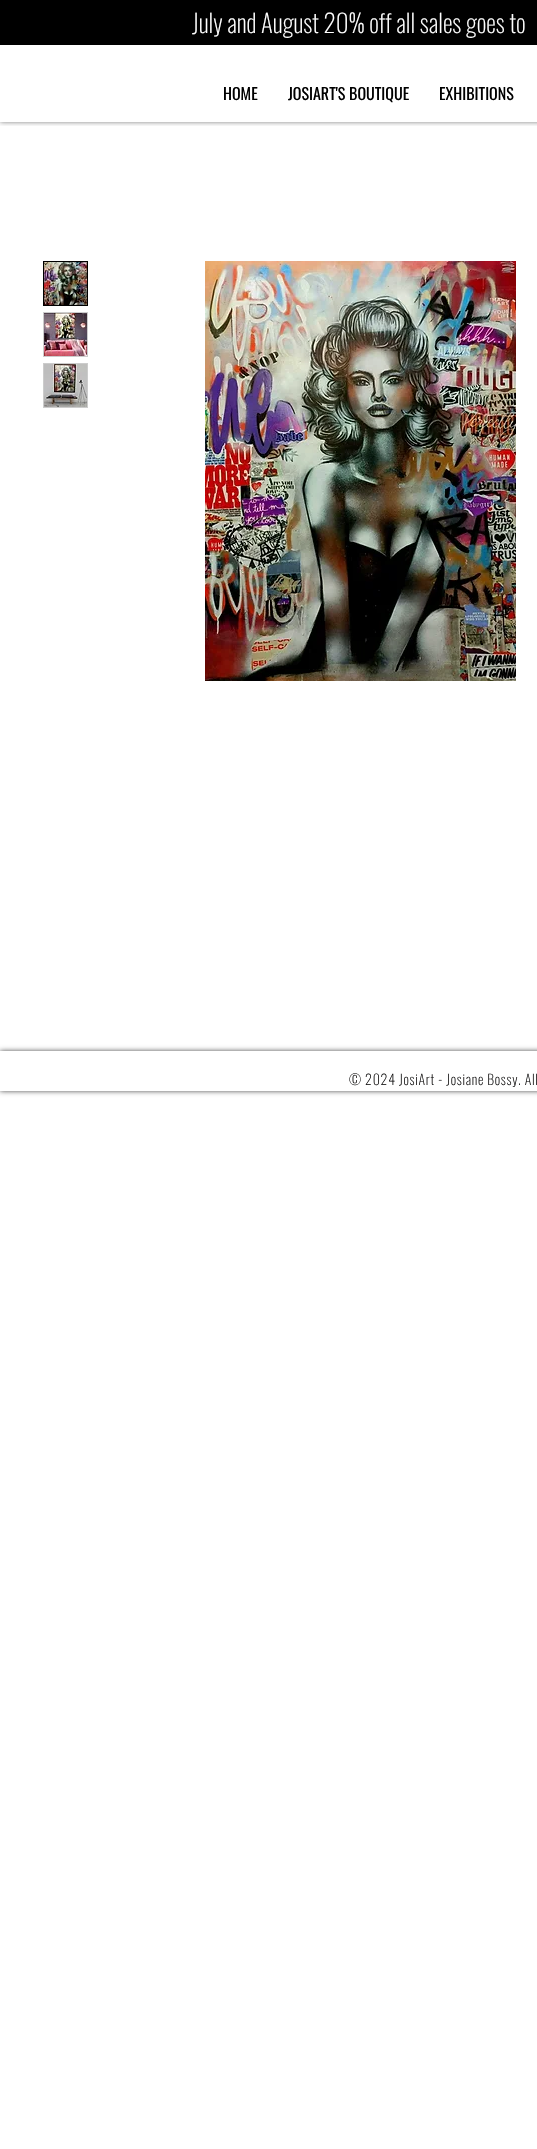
#include "include/core/SkBlurTypes.h"
#include "include/core/SkCanvas.h"
#include "include/core/SkData.h"
#include "include/core/SkFont.h"
#include "include/core/SkFontMgr.h"
#include "include/core/SkImage.h"
#include "include/core/SkMaskFilter.h"
#include "include/core/SkPaint.h"
#include "include/core/SkPathBuilder.h"
#include "include/core/SkTextBlob.h"
#include "include/effects/SkDashPathEffect.h"
#include "include/effects/SkGradientShader.h"
#include "include/utils/SkParsePath.h"

extern sk_sp<SkFontMgr> fontMgr;

void draw(SkCanvas* canvas) {
  SkPaint p;
  p.setAntiAlias(true);
  auto spacedText = [&](const char* s, float x, float y, const SkFont& font, const SkPaint& ink, float letter, float word) {
    std::vector<SkGlyphID> glyphs(font.countText(s, strlen(s), SkTextEncoding::kUTF8));
    std::vector<float> xs(glyphs.size());
    font.textToGlyphs(s, strlen(s), SkTextEncoding::kUTF8, glyphs);
    font.getXPos(glyphs, xs, x);
    float extra = 0;
    for (size_t i = 0; i < glyphs.size(); i++) {
      xs[i] += extra;
      extra += letter + word * (glyphs[i] == font.unicharToGlyph(' '));
    }
    canvas->drawTextBlob(SkTextBlob::MakeFromPosHGlyphs(glyphs, xs, y, font), 0, 0, ink);
  };
  canvas->clear(SK_ColorWHITE);
  canvas->save();
  canvas->clipRect(SkRect::MakeLTRB(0, 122, 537, 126));
  p.setColor(SkColorSetARGB(128, 0, 0, 0));
  p.setMaskFilter(SkMaskFilter::MakeBlur(kNormal_SkBlurStyle, 2.5f));
  canvas->drawRect(SkRect::MakeLTRB(0, 0, 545, 122), p);
  p.setMaskFilter(nullptr);
  canvas->restore();
  p.setColor(SK_ColorBLACK);
  canvas->drawRect(SkRect::MakeLTRB(0, 0, 537, 45), p);
  p.setStyle(SkPaint::kStroke_Style);
  p.setStrokeWidth(1);
  canvas->drawRect(SkRect::MakeLTRB(43.5f, 261.5f, 87.5f, 305.5f), p);
  canvas->drawImageRect(SkImages::DeferredFromEncodedData(SkData::MakeFromFileName("images/1.png")), SkRect::MakeLTRB(44, 262, 87, 305), SkSamplingOptions());
  p.setStyle(SkPaint::kFill_Style);
  p.setColor(SkColorSetRGB(204, 204, 204));
  canvas->drawRect(SkRect::MakeLTRB(43, 312, 88, 357), p);
  canvas->drawImageRect(SkImages::DeferredFromEncodedData(SkData::MakeFromFileName("images/2.png")), SkRect::MakeLTRB(44, 313, 87, 356), SkSamplingOptions());
  canvas->drawRect(SkRect::MakeLTRB(43, 363, 88, 408), p);
  canvas->drawImageRect(SkImages::DeferredFromEncodedData(SkData::MakeFromFileName("images/3.png")), SkRect::MakeLTRB(44, 364, 87, 407), SkSamplingOptions());
  canvas->drawImageRect(SkImages::DeferredFromEncodedData(SkData::MakeFromFileName("images/4.png")), SkRect::MakeLTRB(205, 261, 516, 681), SkSamplingOptions());
  canvas->save();
  canvas->clipPath(SkPathBuilder(SkPathFillType::kEvenOdd).moveTo(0, 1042).lineTo(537, 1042).lineTo(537, 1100).lineTo(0, 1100).close().moveTo(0, 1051).lineTo(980, 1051).lineTo(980, 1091).lineTo(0, 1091).close().detach(), true);
  p.setColor(SkColorSetARGB(179, 0, 0, 0));
  p.setMaskFilter(SkMaskFilter::MakeBlur(kNormal_SkBlurStyle, 2.5f));
  canvas->drawRect(SkRect::MakeLTRB(0, 1051, 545, 1091), p);
  p.setMaskFilter(nullptr);
  canvas->restore();
  SkFont font1(fontMgr->matchFamilyStyle("Oswald", SkFontStyle(200, SkFontStyle::kNormal_Width, SkFontStyle::kUpright_Slant)), 25);
  font1.setSubpixel(true);
  p.setColor(SK_ColorWHITE);
  canvas->drawString("July and August 20% off all sales goes to", 192, 33, font1, p);
  SkFont font2(fontMgr->matchFamilyStyle("Oswald", SkFontStyle::Normal()), 16);
  font2.setSubpixel(true);
  p.setColor(SK_ColorBLACK);
  canvas->drawString("HOME", 223, 100, font2, p);
  canvas->drawString("JOSIART'S BOUTIQUE", 288, 100, font2, p);
  canvas->drawString("EXHIBITIONS", 439, 100, font2, p);
  SkFont font3(fontMgr->matchFamilyStyle("Oswald", SkFontStyle(200, SkFontStyle::kNormal_Width, SkFontStyle::kUpright_Slant)), 14);
  font3.setSubpixel(true);
  p.setColor(SkColorSetRGB(19, 18, 18));
  spacedText("© 2024 JosiArt - Josiane Bossy. All", 349, 1085, font3, p, 0.7f, 0);
}
